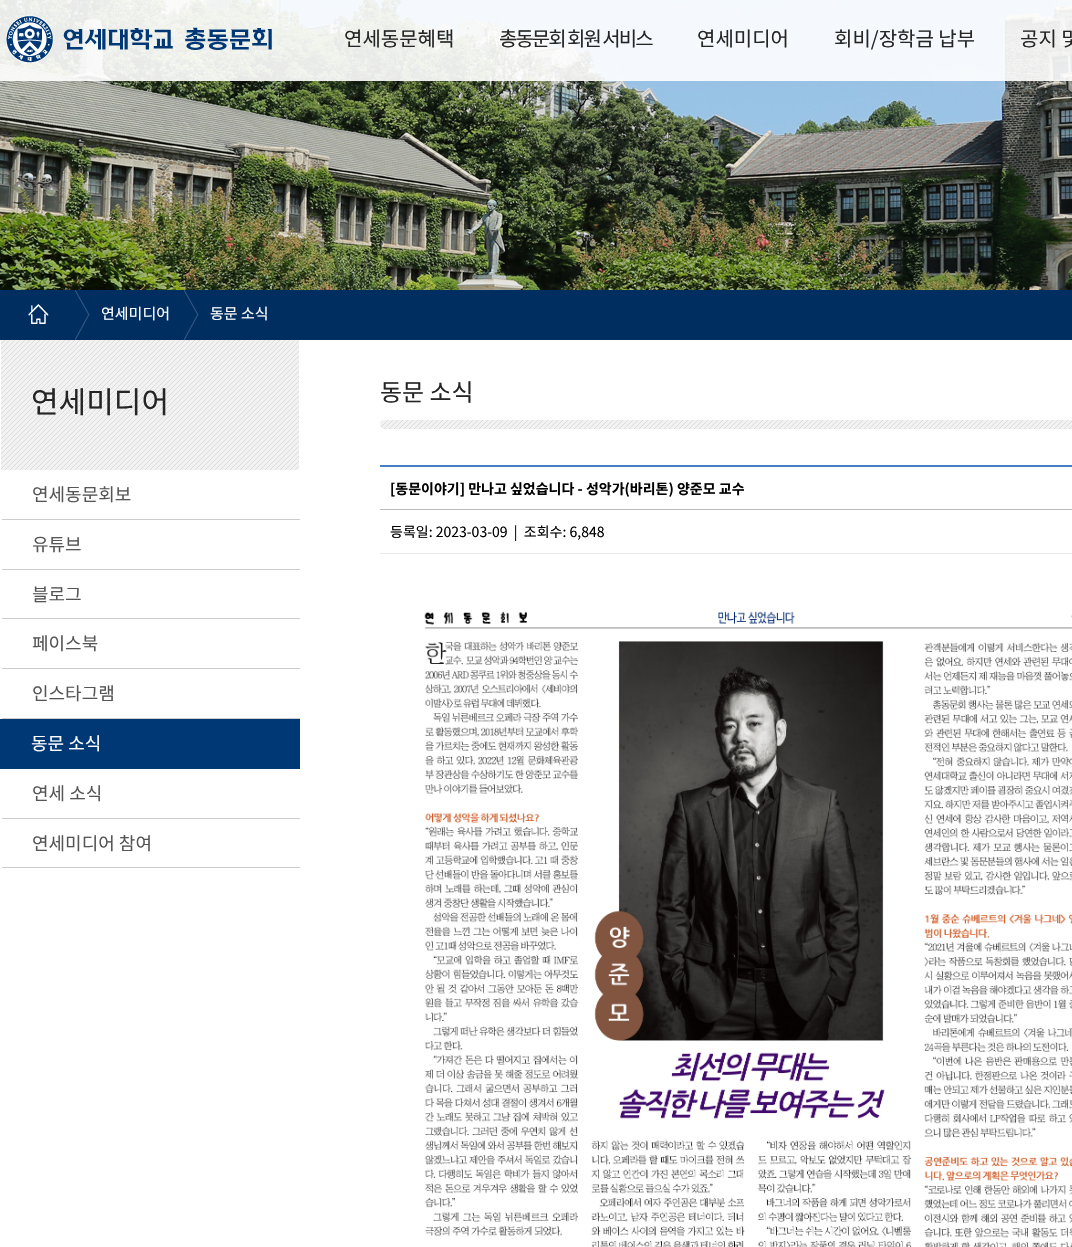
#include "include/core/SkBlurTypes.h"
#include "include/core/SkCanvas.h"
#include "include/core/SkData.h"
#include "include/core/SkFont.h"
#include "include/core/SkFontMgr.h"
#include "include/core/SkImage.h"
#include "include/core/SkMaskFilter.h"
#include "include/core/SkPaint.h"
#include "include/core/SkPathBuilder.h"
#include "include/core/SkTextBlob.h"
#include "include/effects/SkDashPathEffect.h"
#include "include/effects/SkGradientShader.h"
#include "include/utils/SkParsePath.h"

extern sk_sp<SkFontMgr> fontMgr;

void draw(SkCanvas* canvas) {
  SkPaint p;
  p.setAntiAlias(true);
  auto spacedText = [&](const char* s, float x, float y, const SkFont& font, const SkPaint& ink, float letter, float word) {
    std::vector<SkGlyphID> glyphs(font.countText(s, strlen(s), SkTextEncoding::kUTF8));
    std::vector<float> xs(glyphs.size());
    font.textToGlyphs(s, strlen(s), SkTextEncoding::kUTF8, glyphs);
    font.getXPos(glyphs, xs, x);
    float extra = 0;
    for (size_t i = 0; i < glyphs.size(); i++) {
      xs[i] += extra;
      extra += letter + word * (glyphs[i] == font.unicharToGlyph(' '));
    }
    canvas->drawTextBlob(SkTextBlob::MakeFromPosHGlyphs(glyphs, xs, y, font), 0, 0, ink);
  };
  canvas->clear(SK_ColorWHITE);
  canvas->drawImageRect(SkImages::DeferredFromEncodedData(SkData::MakeFromFileName("images/1.png")), SkRect::MakeLTRB(0, 0, 1072, 290), SkSamplingOptions());
  p.setColor(SkColorSetARGB(230, 255, 255, 255));
  canvas->drawRect(SkRect::MakeLTRB(0, 0, 1072, 81), p);
  canvas->drawImageRect(SkImages::DeferredFromEncodedData(SkData::MakeFromFileName("images/2.png")), SkRect::MakeLTRB(6, 15, 272, 63), SkSamplingOptions());
  p.setColor(SkColorSetRGB(0, 46, 97));
  canvas->drawRect(SkRect::MakeLTRB(0, 290, 1072, 340), p);
  canvas->drawImageRect(SkImages::DeferredFromEncodedData(SkData::MakeFromFileName("images/3.png")), SkRect::MakeLTRB(28, 304, 49, 324), SkSamplingOptions());
  canvas->drawImageRect(SkImages::DeferredFromEncodedData(SkData::MakeFromFileName("images/4.png")), SkRect::MakeLTRB(75, 290, 90, 340), SkSamplingOptions());
  canvas->drawImageRect(SkImages::DeferredFromEncodedData(SkData::MakeFromFileName("images/4.png")), SkRect::MakeLTRB(184, 290, 199, 340), SkSamplingOptions());
  canvas->drawImageRect(SkImages::DeferredFromEncodedData(SkData::MakeFromFileName("images/5.png")), SkRect::MakeLTRB(1, 340, 299, 470), SkSamplingOptions());
  p.setColor(SkColorSetRGB(204, 204, 204));
  canvas->drawRect(SkRect::MakeLTRB(2, 519, 300, 520), p);
  canvas->drawRect(SkRect::MakeLTRB(2, 569, 300, 570), p);
  canvas->drawRect(SkRect::MakeLTRB(2, 618, 300, 619), p);
  canvas->drawRect(SkRect::MakeLTRB(2, 668, 300, 669), p);
  canvas->drawRect(SkRect::MakeLTRB(2, 718, 300, 719), p);
  p.setColor(SkColorSetRGB(0, 56, 118));
  canvas->drawRect(SkRect::MakeLTRB(0, 719, 300, 769), p);
  p.setColor(SkColorSetRGB(204, 204, 204));
  canvas->drawRect(SkRect::MakeLTRB(2, 818, 300, 819), p);
  canvas->drawRect(SkRect::MakeLTRB(2, 867, 300, 868), p);
  canvas->drawImageRect(SkImages::DeferredFromEncodedData(SkData::MakeFromFileName("images/6.png")), SkRect::MakeLTRB(380, 420, 1072, 429), SkSamplingOptions());
  p.setColor(SkColorSetRGB(68, 129, 196));
  canvas->drawRect(SkRect::MakeLTRB(380, 465, 1072, 467), p);
  p.setColor(SkColorSetRGB(187, 187, 187));
  canvas->drawRect(SkRect::MakeLTRB(380, 509, 1072, 510), p);
  p.setColor(SkColorSetRGB(236, 236, 236));
  canvas->drawRect(SkRect::MakeLTRB(380, 553, 1072, 554), p);
  canvas->drawImageRect(SkImages::DeferredFromEncodedData(SkData::MakeFromFileName("images/7.png")), SkRect::MakeLTRB(424, 611, 1072, 1247), SkSamplingOptions());
  SkFont font1(fontMgr->matchFamilyStyle("Noto Sans KR", SkFontStyle::Normal()), 20);
  font1.setSubpixel(true);
  p.setColor(SkColorSetRGB(37, 37, 37));
  canvas->drawString("연세동문혜택", 344, 46, font1, p);
  spacedText("총동문회 회원 서비스", 499, 46, font1, p, -2, 0);
  canvas->drawString("연세미디어", 697, 46, font1, p);
  canvas->drawString("회비/장학금 납부", 834, 46, font1, p);
  canvas->drawString("공지 및", 1020, 46, font1, p);
  SkFont font2(fontMgr->matchFamilyStyle("Noto Sans KR", SkFontStyle::Normal()), 15);
  font2.setSubpixel(true);
  p.setColor(SK_ColorWHITE);
  canvas->drawString("연세미디어", 101, 319, font2, p);
  canvas->drawString("동문 소식", 210, 319, font2, p);
  SkFont font3(fontMgr->matchFamilyStyle("Noto Sans KR", SkFontStyle::Normal()), 30);
  font3.setSubpixel(true);
  p.setColor(SkColorSetRGB(37, 37, 37));
  canvas->drawString("연세미디어", 31, 413, font3, p);
  SkFont font4(fontMgr->matchFamilyStyle("Noto Sans KR", SkFontStyle::Normal()), 18);
  font4.setSubpixel(true);
  p.setColor(SkColorSetRGB(85, 85, 85));
  canvas->drawString("연세동문회보", 32, 501, font4, p);
  canvas->drawString("유튜브", 32, 551, font4, p);
  canvas->drawString("블로그", 32, 601, font4, p);
  canvas->drawString("페이스북", 32, 650, font4, p);
  canvas->drawString("인스타그램", 32, 700, font4, p);
  p.setColor(SK_ColorWHITE);
  canvas->drawString("동문 소식", 31, 750, font4, p);
  p.setColor(SkColorSetRGB(85, 85, 85));
  canvas->drawString("연세 소식", 32, 800, font4, p);
  canvas->drawString("연세미디어 참여", 32, 850, font4, p);
  SkFont font5(fontMgr->matchFamilyStyle("Noto Sans KR", SkFontStyle::Normal()), 24);
  font5.setSubpixel(true);
  p.setColor(SkColorSetRGB(37, 37, 37));
  canvas->drawString("동문 소식", 380, 401, font5, p);
  SkFont font6(fontMgr->matchFamilyStyle("Noto Sans KR", SkFontStyle::Bold()), 14);
  font6.setSubpixel(true);
  p.setColor(SK_ColorBLACK);
  canvas->drawString("[동문이야기] 만나고 싶었습니다 - 성악가(바리톤) 양준모 교수", 390, 494, font6, p);
  SkFont font7(fontMgr->matchFamilyStyle("Noto Sans KR", SkFontStyle::Normal()), 14);
  font7.setSubpixel(true);
  canvas->drawString("등록일: 2023-03-09  |  조회수: 6,848", 390, 537, font7, p);
}
